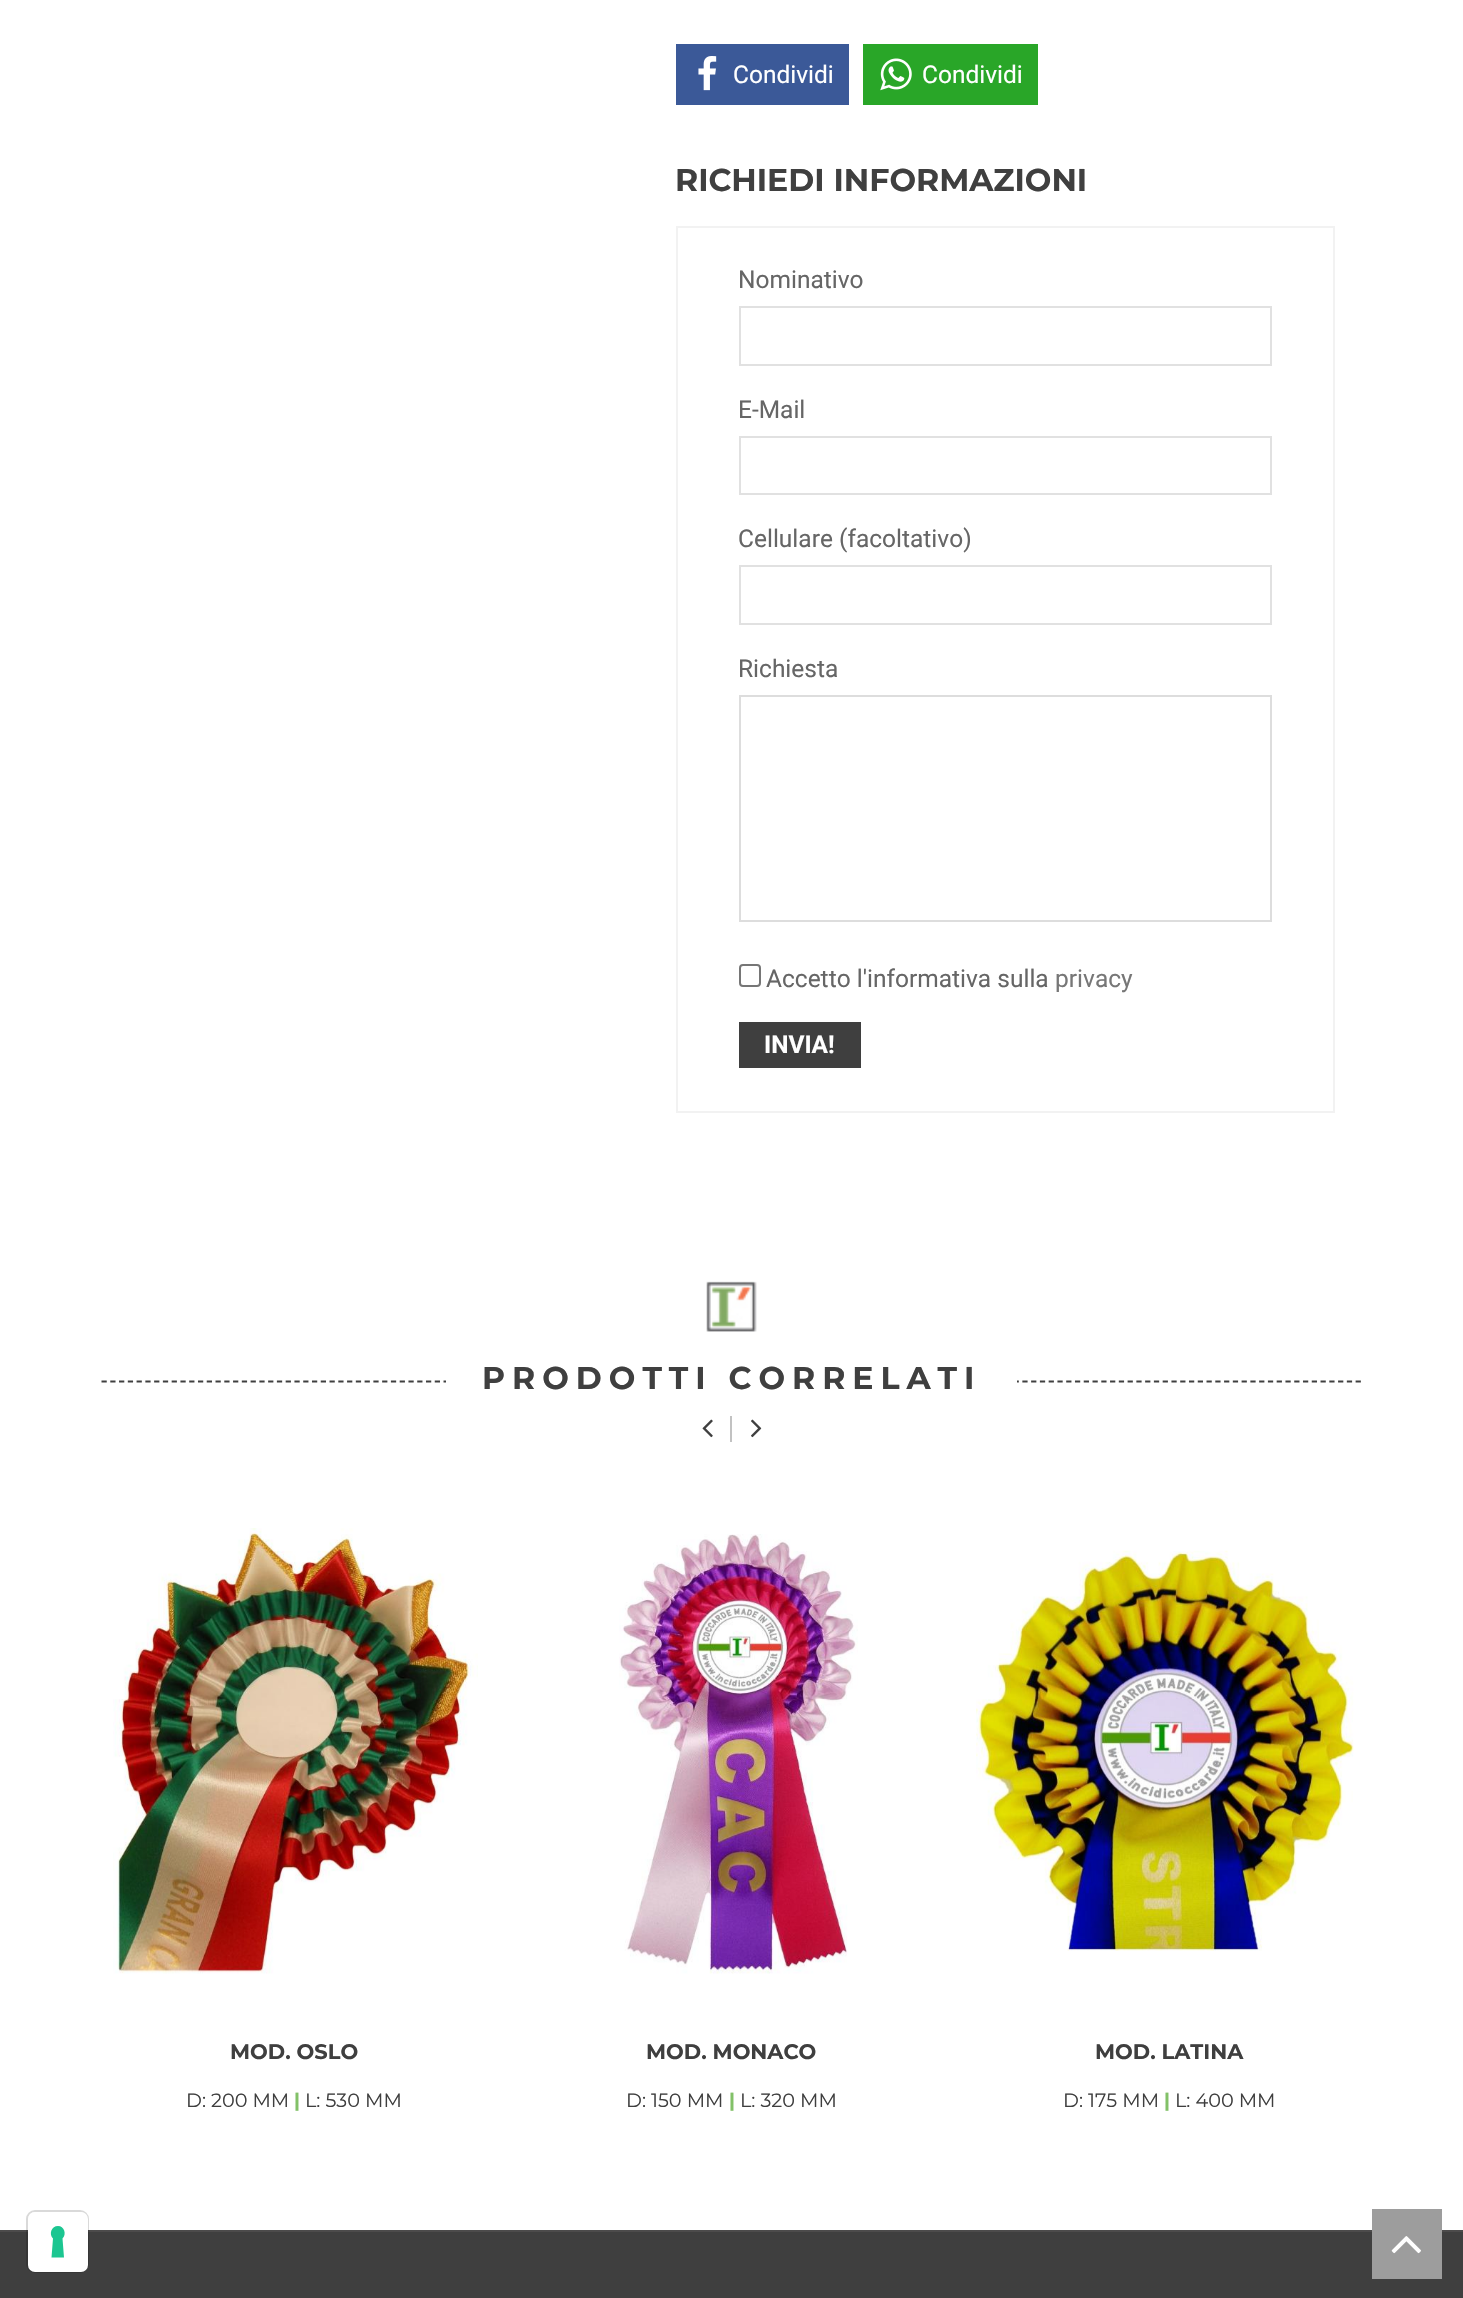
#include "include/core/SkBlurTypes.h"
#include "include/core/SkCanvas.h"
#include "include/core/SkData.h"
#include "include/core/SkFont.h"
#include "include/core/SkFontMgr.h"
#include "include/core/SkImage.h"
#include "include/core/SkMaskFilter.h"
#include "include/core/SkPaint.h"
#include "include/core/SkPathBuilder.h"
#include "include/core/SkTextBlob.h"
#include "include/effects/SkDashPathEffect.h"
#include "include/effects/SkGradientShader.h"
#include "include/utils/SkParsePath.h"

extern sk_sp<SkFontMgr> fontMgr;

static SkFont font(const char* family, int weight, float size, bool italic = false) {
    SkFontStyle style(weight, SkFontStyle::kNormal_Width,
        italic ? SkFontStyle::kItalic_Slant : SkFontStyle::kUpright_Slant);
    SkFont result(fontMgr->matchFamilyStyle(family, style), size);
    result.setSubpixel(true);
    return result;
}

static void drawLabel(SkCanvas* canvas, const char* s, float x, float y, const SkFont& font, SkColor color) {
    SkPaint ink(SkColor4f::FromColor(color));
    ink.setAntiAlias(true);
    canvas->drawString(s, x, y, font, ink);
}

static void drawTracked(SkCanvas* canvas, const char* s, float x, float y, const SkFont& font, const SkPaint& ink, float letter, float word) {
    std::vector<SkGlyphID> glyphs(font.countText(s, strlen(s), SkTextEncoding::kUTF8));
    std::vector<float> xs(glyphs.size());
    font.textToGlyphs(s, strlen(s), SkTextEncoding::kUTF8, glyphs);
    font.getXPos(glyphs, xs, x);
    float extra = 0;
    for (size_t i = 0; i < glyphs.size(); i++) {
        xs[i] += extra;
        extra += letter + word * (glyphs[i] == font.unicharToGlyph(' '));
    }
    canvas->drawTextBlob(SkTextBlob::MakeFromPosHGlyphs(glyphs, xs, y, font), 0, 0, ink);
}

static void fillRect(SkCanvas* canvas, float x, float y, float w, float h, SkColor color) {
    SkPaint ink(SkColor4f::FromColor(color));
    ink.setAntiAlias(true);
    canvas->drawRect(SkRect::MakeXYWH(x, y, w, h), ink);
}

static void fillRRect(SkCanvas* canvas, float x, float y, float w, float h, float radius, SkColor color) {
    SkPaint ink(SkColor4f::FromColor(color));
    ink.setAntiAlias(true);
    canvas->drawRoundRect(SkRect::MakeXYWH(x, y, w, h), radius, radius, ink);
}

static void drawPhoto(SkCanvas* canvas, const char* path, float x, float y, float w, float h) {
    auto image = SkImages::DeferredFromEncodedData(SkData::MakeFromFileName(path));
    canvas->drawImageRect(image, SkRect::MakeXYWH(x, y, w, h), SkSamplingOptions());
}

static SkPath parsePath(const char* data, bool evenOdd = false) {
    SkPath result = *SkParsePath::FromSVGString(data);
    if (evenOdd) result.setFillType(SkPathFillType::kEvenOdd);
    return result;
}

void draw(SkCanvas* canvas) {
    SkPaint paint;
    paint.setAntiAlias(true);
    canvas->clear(0xFFFFFFFF);
    fillRect(canvas, 676, 44, 173, 61, 0xFF3B5998);
    drawPhoto(canvas, "assets/img1.png", 698, 56, 19, 35);
    SkFont font1 = font("Roboto", 400, 24.5f);
    drawLabel(canvas, "Condividi", 733, 83, font1, 0xFFFFFFFF);
    fillRect(canvas, 863, 44, 175, 61, 0xFF29A628);
    drawPhoto(canvas, "assets/img2.png", 880, 58, 32, 33);
    drawLabel(canvas, "Condividi", 922, 83, font1, 0xFFFFFFFF);
    SkFont font2 = font("Montserrat", 700, 31.5f);
    drawLabel(canvas, "RICHIEDI INFORMAZIONI", 675, 191, font2, 0xFF3F3F3F);
    paint.setStroke(true);
    paint.setStrokeWidth(2);
    paint.setColor(0xFFF2F2F2);
    canvas->drawRect(SkRect::MakeXYWH(677, 227, 657, 885), paint);
    drawLabel(canvas, "Nominativo", 738, 288, font1, 0xFF666666);
    paint.setColor(0xFFE1E1E1);
    canvas->drawRect(SkRect::MakeXYWH(740, 307, 531, 58), paint);
    drawLabel(canvas, "E-Mail", 738, 418, font1, 0xFF666666);
    canvas->drawRect(SkRect::MakeXYWH(740, 437, 531, 57), paint);
    drawLabel(canvas, "Cellulare (facoltativo)", 738, 547, font1, 0xFF666666);
    canvas->drawRect(SkRect::MakeXYWH(740, 566, 531, 58), paint);
    drawLabel(canvas, "Richiesta", 738, 677, font1, 0xFF666666);
    paint.setColor(0xFFDDDDDD);
    canvas->drawRect(SkRect::MakeXYWH(740, 696, 531, 225), paint);
    paint.setColor(0xFF767676);
    canvas->drawRoundRect(SkRect::MakeXYWH(740, 965, 20, 21), 3, 3, paint);
    drawLabel(canvas, "Accetto l'informativa sulla", 766, 987, font1, 0xFF666666);
    drawLabel(canvas, "privacy", 1055, 987, font1, 0xFF777777);
    fillRect(canvas, 739, 1022, 122, 46, 0xFF3F3F3F);
    SkFont font3 = font("Roboto", 700, 24.5f);
    drawLabel(canvas, "INVIA!", 764, 1053, font3, 0xFFFFFFFF);
    drawPhoto(canvas, "assets/img3.png", 706, 1281, 51, 51);
    paint.setStrokeWidth(1.8f);
    paint.setColor(0xFF3F3F3F);
    paint.setPathEffect(SkDashPathEffect::Make({{5.25f, 3.52f}}, 0));
    canvas->drawPath(parsePath("M101.5 1381.5H1361.5"), paint);
    paint.setPathEffect(nullptr);
    fillRect(canvas, 446, 1380, 571, 3, 0xFFFFFFFF);
    paint.setStroke(false);
    drawTracked(canvas, "PRODOTTI CORRELATI", 482, 1389, font2, paint, 7, 0);
    drawPhoto(canvas, "assets/img4.png", 702, 1419, 11, 19);
    fillRect(canvas, 730, 1416, 2, 26, 0xFFC2C2C2);
    drawPhoto(canvas, "assets/img5.png", 751, 1419, 11, 19);
    drawPhoto(canvas, "assets/img6.png", 113, 1528, 365, 446);
    SkFont font4 = font("Montserrat", 700, 21);
    drawLabel(canvas, "MOD. OSLO", 230, 2059, font4, 0xFF3F3F3F);
    SkFont font5 = font("Montserrat", 400, 19.25f);
    drawLabel(canvas, "D: 200 MM", 186, 2107, font5, 0xFF3F3F3F);
    SkFont font6 = font("Montserrat", 700, 19.25f);
    drawLabel(canvas, "|", 294, 2107, font6, 0xFF82C168);
    drawLabel(canvas, "L: 530 MM", 305, 2107, font5, 0xFF3F3F3F);
    drawPhoto(canvas, "assets/img7.png", 619, 1534, 239, 440);
    drawLabel(canvas, "MOD. MONACO", 646, 2059, font4, 0xFF3F3F3F);
    drawLabel(canvas, "D: 150 MM", 626, 2107, font5, 0xFF3F3F3F);
    drawLabel(canvas, "|", 729, 2107, font6, 0xFF82C168);
    drawLabel(canvas, "L: 320 MM", 740, 2107, font5, 0xFF3F3F3F);
    drawPhoto(canvas, "assets/img8.png", 976, 1550, 378, 401);
    drawLabel(canvas, "MOD. LATINA", 1095, 2059, font4, 0xFF3F3F3F);
    drawLabel(canvas, "D: 175 MM", 1063, 2107, font5, 0xFF3F3F3F);
    drawLabel(canvas, "|", 1164, 2107, font6, 0xFF82C168);
    drawLabel(canvas, "L: 400 MM", 1175, 2107, font5, 0xFF3F3F3F);
    fillRect(canvas, 0, 2232, 1463, 66, 0xFF3F3F3F);
    fillRect(canvas, 0, 2230, 1463, 2, 0xFF4C4B4B);
    paint.setStroke(true);
    paint.setStrokeWidth(2);
    paint.setColor(0x26000000);
    canvas->drawRoundRect(SkRect::MakeXYWH(27, 2211, 61, 61), 8, 8, paint);
    fillRRect(canvas, 28, 2212, 60, 60, 7, 0xFFFFFFFF);
    paint.setStroke(false);
    paint.setColor(0xFF1CC691);
    canvas->drawPath(parsePath("M58 2226C64 2226 67 2234 62.5 2238.5L64 2257.5H51.5L53 2238.5C48.5 2234 51.5 2226 58 2226Z", true), paint);
    fillRect(canvas, 1372, 2209, 70, 70, 0xFF9D9D9D);
    drawPhoto(canvas, "assets/img9.png", 1391, 2236, 30, 18);
}
